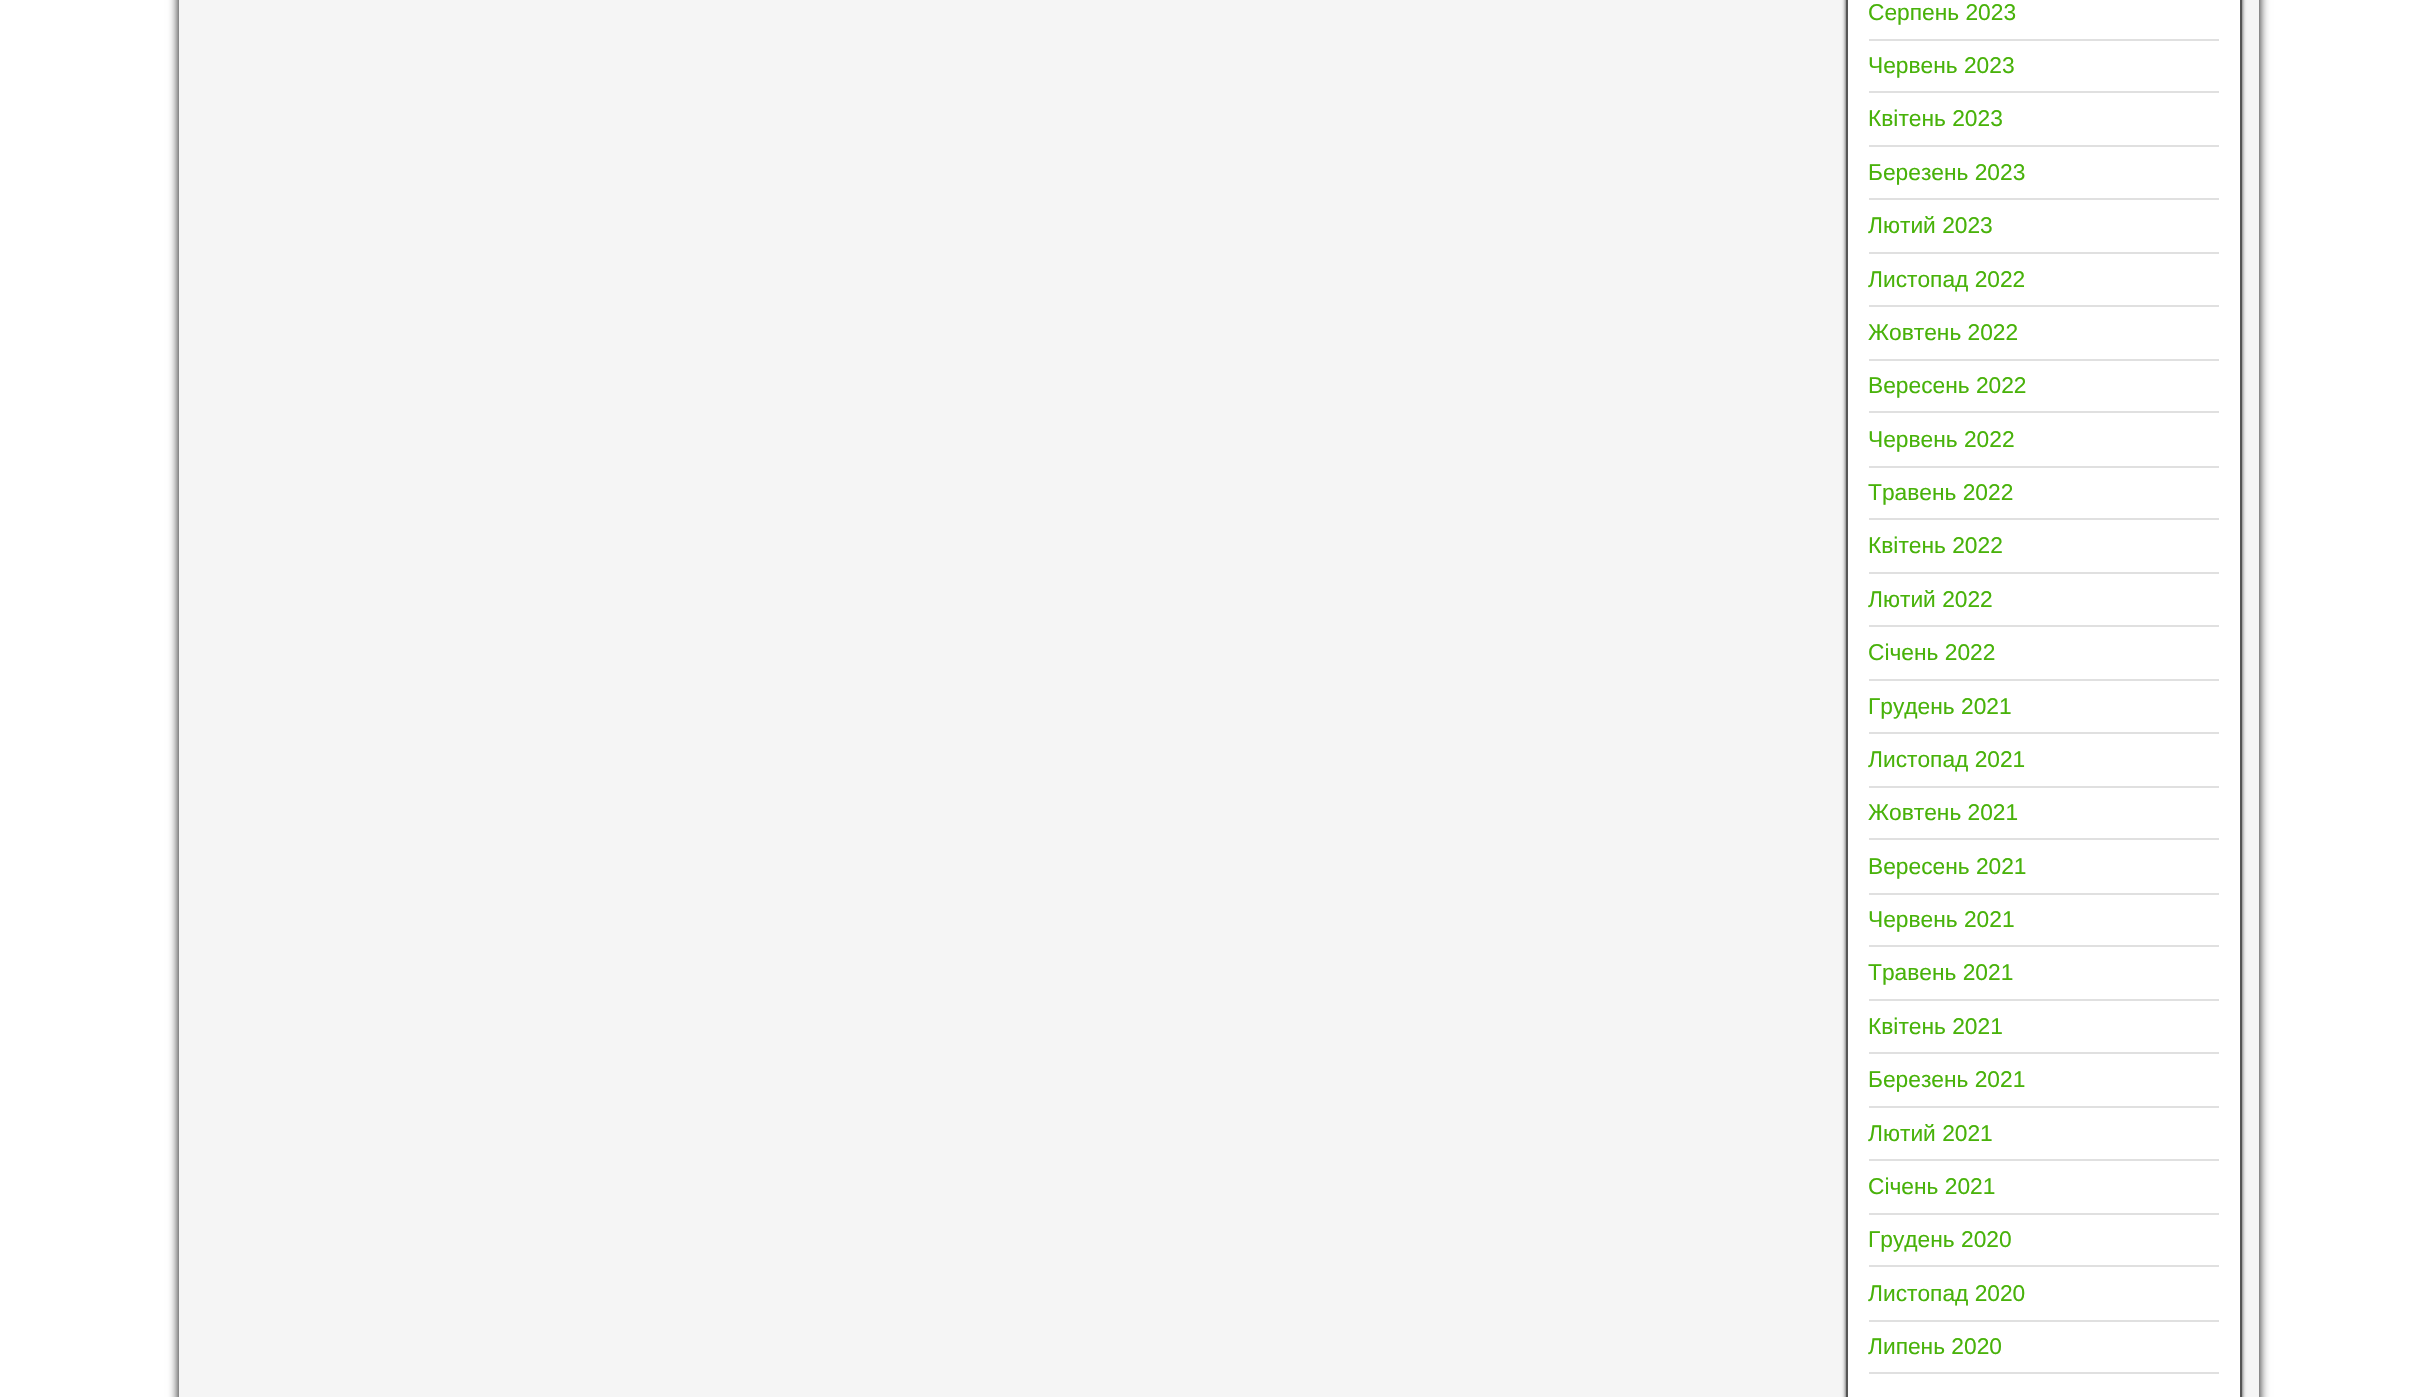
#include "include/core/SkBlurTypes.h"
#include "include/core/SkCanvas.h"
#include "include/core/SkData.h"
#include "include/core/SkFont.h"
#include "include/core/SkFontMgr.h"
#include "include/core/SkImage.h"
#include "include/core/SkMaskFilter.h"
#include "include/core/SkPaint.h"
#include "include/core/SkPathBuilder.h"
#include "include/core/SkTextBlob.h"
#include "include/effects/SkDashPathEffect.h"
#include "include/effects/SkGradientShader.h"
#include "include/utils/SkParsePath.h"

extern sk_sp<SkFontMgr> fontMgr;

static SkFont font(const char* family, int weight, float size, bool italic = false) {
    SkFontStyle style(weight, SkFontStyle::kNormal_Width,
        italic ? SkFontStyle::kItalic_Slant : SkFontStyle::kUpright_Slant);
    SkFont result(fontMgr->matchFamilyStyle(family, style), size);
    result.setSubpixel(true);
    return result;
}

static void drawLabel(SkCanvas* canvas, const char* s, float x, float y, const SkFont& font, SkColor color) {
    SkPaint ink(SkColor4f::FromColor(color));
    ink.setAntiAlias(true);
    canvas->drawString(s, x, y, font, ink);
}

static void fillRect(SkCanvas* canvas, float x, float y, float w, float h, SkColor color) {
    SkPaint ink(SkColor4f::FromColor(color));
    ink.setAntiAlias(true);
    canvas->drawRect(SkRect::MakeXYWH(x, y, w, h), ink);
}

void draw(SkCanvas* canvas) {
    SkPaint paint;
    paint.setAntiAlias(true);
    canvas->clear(0xFFFFFFFF);
    paint.setColor(0xFF000000);
    paint.setMaskFilter(SkMaskFilter::MakeBlur(kNormal_SkBlurStyle, 5));
    canvas->drawRect(SkRect::MakeXYWH(179, -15, 2080, 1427), paint);
    paint.setMaskFilter(nullptr);
    fillRect(canvas, 179, 0, 2080, 1397, 0xFFF5F5F5);
    paint.setColor(0xFF333333);
    paint.setMaskFilter(SkMaskFilter::MakeBlur(kNormal_SkBlurStyle, 2));
    canvas->drawRect(SkRect::MakeXYWH(1846, -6, 396, 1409), paint);
    paint.setMaskFilter(nullptr);
    paint.setColor(0xFFFFFFFF);
    canvas->drawRect(SkRect::MakeXYWH(1847, -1, 394, 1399), paint);
    paint.setStroke(true);
    paint.setStrokeWidth(2);
    paint.setColor(0xFF555555);
    canvas->drawRect(SkRect::MakeXYWH(1847, -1, 394, 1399), paint);
    fillRect(canvas, 1869, 39, 350, 2, 0xFFE0E0E0);
    SkFont font1 = font("Liberation Sans", 400, 22.75f);
    drawLabel(canvas, "Серпень 2023", 1868, 20, font1, 0xFF48B20A);
    fillRect(canvas, 1869, 91, 350, 2, 0xFFE0E0E0);
    drawLabel(canvas, "Червень 2023", 1868, 73, font1, 0xFF48B20A);
    fillRect(canvas, 1869, 145, 350, 2, 0xFFE0E0E0);
    drawLabel(canvas, "Квітень 2023", 1868, 126, font1, 0xFF48B20A);
    fillRect(canvas, 1869, 198, 350, 2, 0xFFE0E0E0);
    drawLabel(canvas, "Березень 2023", 1868, 180, font1, 0xFF48B20A);
    fillRect(canvas, 1869, 252, 350, 2, 0xFFE0E0E0);
    drawLabel(canvas, "Лютий 2023", 1868, 233, font1, 0xFF48B20A);
    fillRect(canvas, 1869, 305, 350, 2, 0xFFE0E0E0);
    drawLabel(canvas, "Листопад 2022", 1868, 287, font1, 0xFF48B20A);
    fillRect(canvas, 1869, 359, 350, 2, 0xFFE0E0E0);
    drawLabel(canvas, "Жовтень 2022", 1868, 340, font1, 0xFF48B20A);
    fillRect(canvas, 1869, 411, 350, 2, 0xFFE0E0E0);
    drawLabel(canvas, "Вересень 2022", 1868, 393, font1, 0xFF48B20A);
    fillRect(canvas, 1869, 466, 350, 2, 0xFFE0E0E0);
    drawLabel(canvas, "Червень 2022", 1868, 447, font1, 0xFF48B20A);
    fillRect(canvas, 1869, 518, 350, 2, 0xFFE0E0E0);
    drawLabel(canvas, "Травень 2022", 1868, 500, font1, 0xFF48B20A);
    fillRect(canvas, 1869, 572, 350, 2, 0xFFE0E0E0);
    drawLabel(canvas, "Квітень 2022", 1868, 553, font1, 0xFF48B20A);
    fillRect(canvas, 1869, 625, 350, 2, 0xFFE0E0E0);
    drawLabel(canvas, "Лютий 2022", 1868, 607, font1, 0xFF48B20A);
    fillRect(canvas, 1869, 679, 350, 2, 0xFFE0E0E0);
    drawLabel(canvas, "Січень 2022", 1868, 660, font1, 0xFF48B20A);
    fillRect(canvas, 1869, 732, 350, 2, 0xFFE0E0E0);
    drawLabel(canvas, "Грудень 2021", 1868, 714, font1, 0xFF48B20A);
    fillRect(canvas, 1869, 786, 350, 2, 0xFFE0E0E0);
    drawLabel(canvas, "Листопад 2021", 1868, 767, font1, 0xFF48B20A);
    fillRect(canvas, 1869, 838, 350, 2, 0xFFE0E0E0);
    drawLabel(canvas, "Жовтень 2021", 1868, 820, font1, 0xFF48B20A);
    fillRect(canvas, 1869, 893, 350, 2, 0xFFE0E0E0);
    drawLabel(canvas, "Вересень 2021", 1868, 874, font1, 0xFF48B20A);
    fillRect(canvas, 1869, 945, 350, 2, 0xFFE0E0E0);
    drawLabel(canvas, "Червень 2021", 1868, 927, font1, 0xFF48B20A);
    fillRect(canvas, 1869, 999, 350, 2, 0xFFE0E0E0);
    drawLabel(canvas, "Травень 2021", 1868, 980, font1, 0xFF48B20A);
    fillRect(canvas, 1869, 1052, 350, 2, 0xFFE0E0E0);
    drawLabel(canvas, "Квітень 2021", 1868, 1034, font1, 0xFF48B20A);
    fillRect(canvas, 1869, 1106, 350, 2, 0xFFE0E0E0);
    drawLabel(canvas, "Березень 2021", 1868, 1087, font1, 0xFF48B20A);
    fillRect(canvas, 1869, 1159, 350, 2, 0xFFE0E0E0);
    drawLabel(canvas, "Лютий 2021", 1868, 1141, font1, 0xFF48B20A);
    fillRect(canvas, 1869, 1213, 350, 2, 0xFFE0E0E0);
    drawLabel(canvas, "Січень 2021", 1868, 1194, font1, 0xFF48B20A);
    fillRect(canvas, 1869, 1265, 350, 2, 0xFFE0E0E0);
    drawLabel(canvas, "Грудень 2020", 1868, 1247, font1, 0xFF48B20A);
    fillRect(canvas, 1869, 1320, 350, 2, 0xFFE0E0E0);
    drawLabel(canvas, "Листопад 2020", 1868, 1301, font1, 0xFF48B20A);
    fillRect(canvas, 1869, 1372, 350, 2, 0xFFE0E0E0);
    drawLabel(canvas, "Липень 2020", 1868, 1354, font1, 0xFF48B20A);
}
